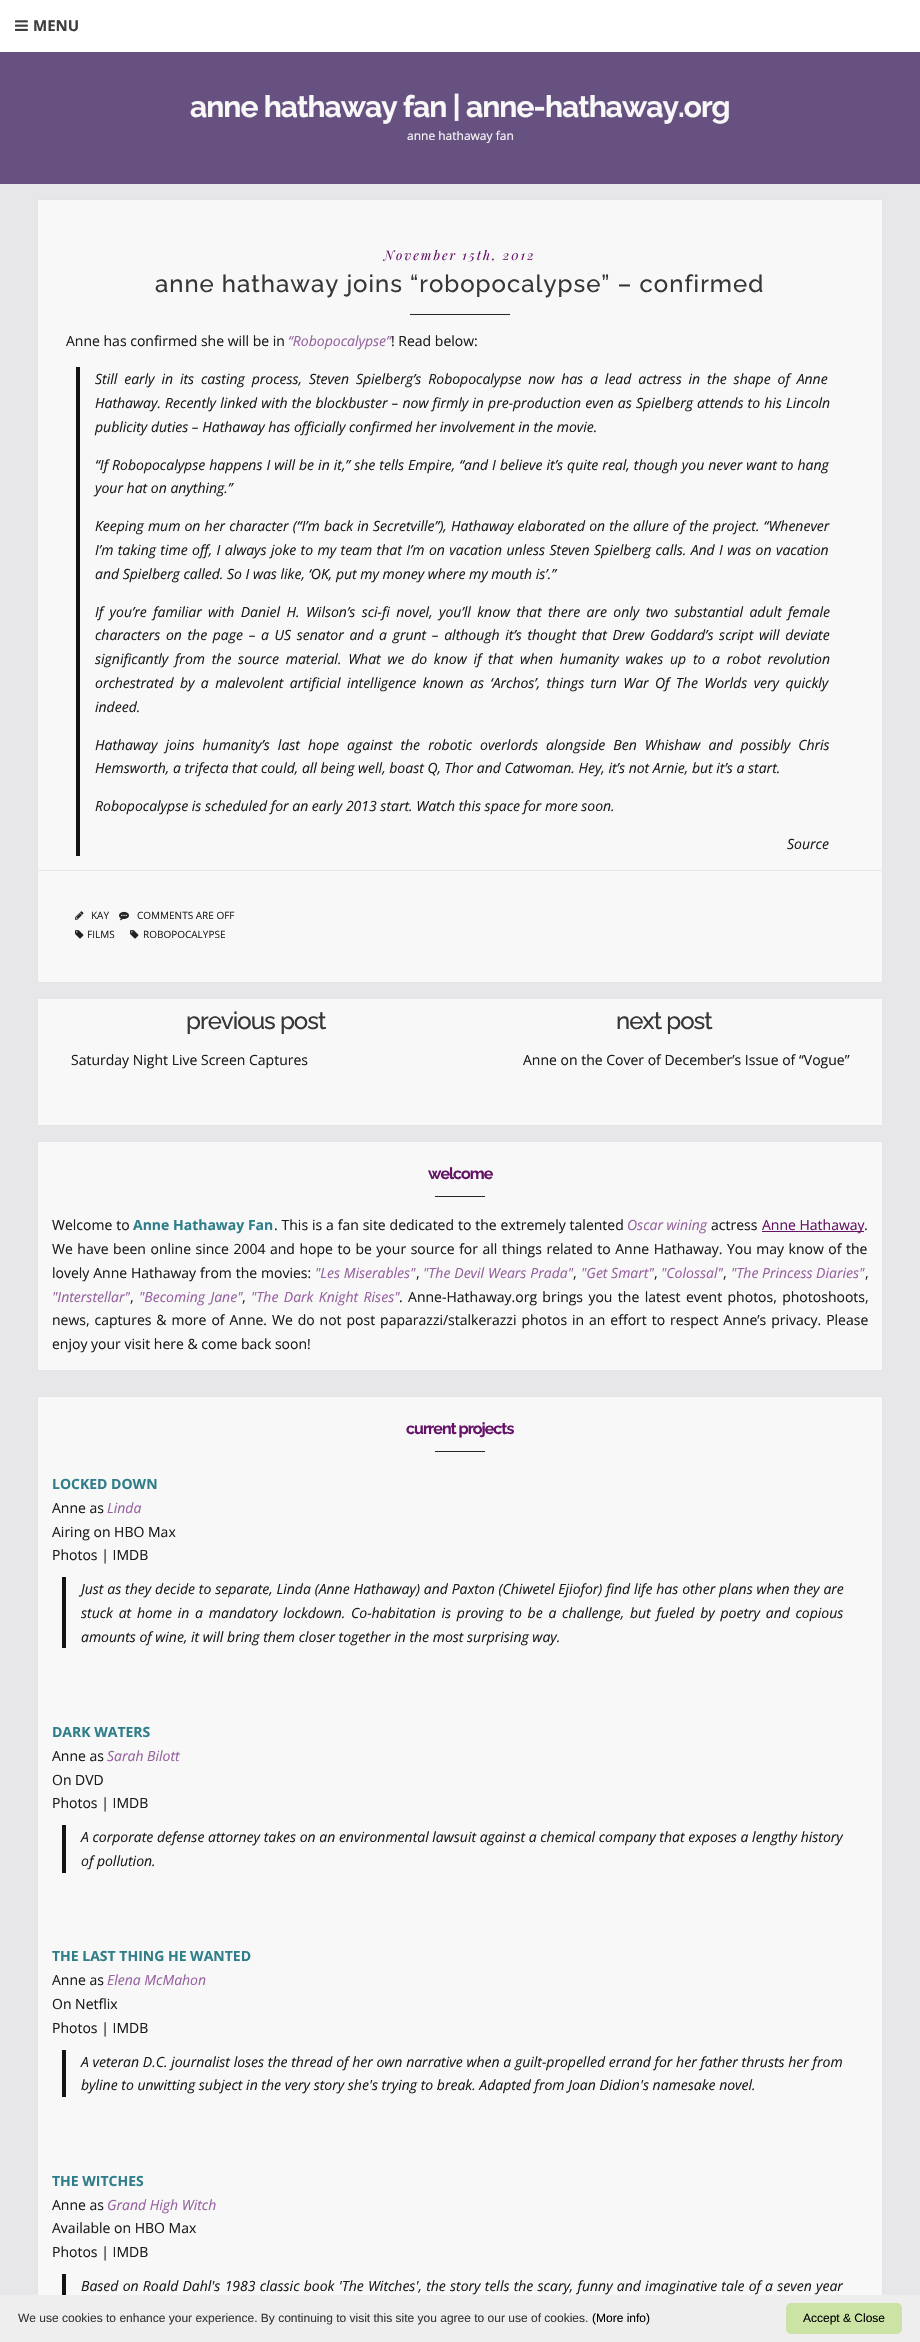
#include "include/core/SkBlurTypes.h"
#include "include/core/SkCanvas.h"
#include "include/core/SkData.h"
#include "include/core/SkFont.h"
#include "include/core/SkFontMgr.h"
#include "include/core/SkImage.h"
#include "include/core/SkMaskFilter.h"
#include "include/core/SkPaint.h"
#include "include/core/SkPathBuilder.h"
#include "include/core/SkTextBlob.h"
#include "include/effects/SkDashPathEffect.h"
#include "include/effects/SkGradientShader.h"
#include "include/utils/SkParsePath.h"

extern sk_sp<SkFontMgr> fontMgr;

static SkFont font(const char* family, int weight, float size, bool italic = false) {
    SkFontStyle style(weight, SkFontStyle::kNormal_Width,
        italic ? SkFontStyle::kItalic_Slant : SkFontStyle::kUpright_Slant);
    SkFont result(fontMgr->matchFamilyStyle(family, style), size);
    result.setSubpixel(true);
    return result;
}

static void drawLabel(SkCanvas* canvas, const char* s, float x, float y, const SkFont& font, SkColor color) {
    SkPaint ink(SkColor4f::FromColor(color));
    ink.setAntiAlias(true);
    canvas->drawString(s, x, y, font, ink);
}

static void drawTracked(SkCanvas* canvas, const char* s, float x, float y, const SkFont& font, const SkPaint& ink, float letter, float word) {
    std::vector<SkGlyphID> glyphs(font.countText(s, strlen(s), SkTextEncoding::kUTF8));
    std::vector<float> xs(glyphs.size());
    font.textToGlyphs(s, strlen(s), SkTextEncoding::kUTF8, glyphs);
    font.getXPos(glyphs, xs, x);
    float extra = 0;
    for (size_t i = 0; i < glyphs.size(); i++) {
        xs[i] += extra;
        extra += letter + word * (glyphs[i] == font.unicharToGlyph(' '));
    }
    canvas->drawTextBlob(SkTextBlob::MakeFromPosHGlyphs(glyphs, xs, y, font), 0, 0, ink);
}

static void fillRect(SkCanvas* canvas, float x, float y, float w, float h, SkColor color) {
    SkPaint ink(SkColor4f::FromColor(color));
    ink.setAntiAlias(true);
    canvas->drawRect(SkRect::MakeXYWH(x, y, w, h), ink);
}

static void fillRRect(SkCanvas* canvas, float x, float y, float w, float h, float radius, SkColor color) {
    SkPaint ink(SkColor4f::FromColor(color));
    ink.setAntiAlias(true);
    canvas->drawRoundRect(SkRect::MakeXYWH(x, y, w, h), radius, radius, ink);
}

static void drawPhoto(SkCanvas* canvas, const char* path, float x, float y, float w, float h) {
    auto image = SkImages::DeferredFromEncodedData(SkData::MakeFromFileName(path));
    canvas->drawImageRect(image, SkRect::MakeXYWH(x, y, w, h), SkSamplingOptions());
}

void draw(SkCanvas* canvas) {
    SkPaint paint;
    paint.setAntiAlias(true);
    canvas->clear(0xFFE7E7EA);
    fillRect(canvas, 0, 0, 920, 52, 0xFFFFFFFF);
    drawPhoto(canvas, "assets/img1.png", 15, 20, 13, 11);
    SkFont font1 = font("Open Sans", 700, 15);
    drawLabel(canvas, "MENU", 33, 31, font1, 0xFF3D3D3D);
    fillRect(canvas, 0, 52, 920, 132, 0xFF665181);
    SkFont font2 = font("Raleway", 700, 30);
    paint.setColor(0xFFF8F8F8);
    drawTracked(canvas, "anne hathaway fan | anne-hathaway.org", 190, 117, font2, paint, -1, 0);
    SkFont font3 = font("Open Sans", 400, 12);
    drawLabel(canvas, "anne hathaway fan", 407, 140, font3, 0xFFF8F8F8);
    canvas->drawRect(SkRect::MakeXYWH(37.5f, 199.5f, 845, 783), paint);
    paint.setStroke(true);
    paint.setStrokeWidth(1);
    paint.setColor(0xFFE4E4E4);
    canvas->drawRect(SkRect::MakeXYWH(37.5f, 199.5f, 845, 783), paint);
    SkFont font4 = font("Playfair Display", 400, 13, true);
    paint.setStroke(false);
    paint.setColor(0xFF641367);
    drawTracked(canvas, "November 15th, 2012", 384, 260, font4, paint, 2, 0);
    SkFont font5 = font("Raleway", 500, 24);
    paint.setColor(0xFF373737);
    drawTracked(canvas, "anne hathaway joins “robopocalypse” – confirmed", 155, 292, font5, paint, 1, 0);
    fillRect(canvas, 410, 314, 100, 1, 0xFF262626);
    SkFont font6 = font("Open Sans", 400, 14);
    drawLabel(canvas, "Anne has confirmed she will be in", 66, 346, font6, 0xFF1C1C1C);
    SkFont font7 = font("Open Sans", 400, 14, true);
    drawLabel(canvas, "“Robopocalypse”", 288, 346, font7, 0xFF9662A0);
    drawLabel(canvas, "! Read below:", 391, 346, font6, 0xFF1C1C1C);
    fillRect(canvas, 76, 367, 4, 489, 0xFF141414);
    paint.setColor(0xFF1C1C1C);
    drawTracked(canvas, "Still early in its casting process, Steven Spielberg’s Robopocalypse now has a lead actress in the shape of Anne", 95, 384, font7, paint, 0, 3.25f);
    drawTracked(canvas, "Hathaway. Recently linked with the blockbuster – now firmly in pre-production even as Spielberg attends to his Lincoln", 95, 408, font7, paint, 0, 0.5f);
    drawLabel(canvas, "publicity duties – Hathaway has officially confirmed her involvement in the movie.", 95, 432, font7, 0xFF1C1C1C);
    drawTracked(canvas, "“If Robopocalypse happens I will be in it,” she tells Empire, “and I believe it’s quite real, though you never want to hang", 95, 470, font7, paint, 0, 0.4f);
    drawLabel(canvas, "your hat on anything.”", 95, 493, font7, 0xFF1C1C1C);
    drawTracked(canvas, "Keeping mum on her character (“I’m back in Secretville”), Hathaway elaborated on the allure of the project. “Whenever", 95, 531, font7, paint, 0, 0.5f);
    drawTracked(canvas, "I’m taking time off, I always joke to my team that I’m on vacation unless Steven Spielberg calls. And I was on vacation", 95, 555, font7, paint, 0, 0.75f);
    drawLabel(canvas, "and Spielberg called. So I was like, ‘OK, put my money where my mouth is’.”", 95, 579, font7, 0xFF1C1C1C);
    drawTracked(canvas, "If you’re familiar with Daniel H. Wilson’s sci-fi novel, you’ll know that there are only two substantial adult female", 95, 617, font7, paint, 0, 2.75f);
    drawTracked(canvas, "characters on the page – a US senator and a grunt – although it’s thought that Drew Goddard’s script will deviate", 95, 640, font7, paint, 0, 2);
    drawTracked(canvas, "significantly from the source material. What we do know if that when humanity wakes up to a robot revolution", 95, 664, font7, paint, 0, 3.1f);
    drawTracked(canvas, "orchestrated by a malevolent artificial intelligence known as ‘Archos’, things turn War Of The Worlds very quickly", 95, 688, font7, paint, 0, 2.75f);
    drawLabel(canvas, "indeed.", 95, 712, font7, 0xFF1C1C1C);
    drawTracked(canvas, "Hathaway joins humanity’s last hope against the robotic overlords alongside Ben Whishaw and possibly Chris", 95, 750, font7, paint, 0, 4.4f);
    drawLabel(canvas, "Hemsworth, a trifecta that could, all being well, boast Q, Thor and Catwoman. Hey, it’s not Arnie, but it’s a start.", 95, 773, font7, 0xFF1C1C1C);
    drawLabel(canvas, "Robopocalypse is scheduled for an early 2013 start. Watch this space for more soon.", 95, 811, font7, 0xFF1C1C1C);
    drawLabel(canvas, "Source", 787, 849, font7, 0xFF1C1C1C);
    fillRect(canvas, 38, 870, 844, 1, 0xFFE7E7EA);
    drawPhoto(canvas, "assets/img2.png", 75, 911, 9, 9);
    SkFont font8 = font("Open Sans", 400, 10);
    drawLabel(canvas, "KAY", 91, 919, font8, 0xFF222222);
    drawPhoto(canvas, "assets/img3.png", 119, 911, 10, 10);
    drawLabel(canvas, "COMMENTS ARE OFF", 137, 919, font8, 0xFF222222);
    drawPhoto(canvas, "assets/img4.png", 75, 930, 9, 9);
    drawLabel(canvas, "FILMS", 87, 938, font8, 0xFF222222);
    drawPhoto(canvas, "assets/img4.png", 130, 930, 9, 9);
    drawLabel(canvas, "ROBOPOCALYPSE", 143, 938, font8, 0xFF222222);
    paint.setColor(0xFFF8F8F8);
    canvas->drawRect(SkRect::MakeXYWH(37.5f, 998.5f, 845, 127), paint);
    paint.setStroke(true);
    paint.setColor(0xFFE4E4E4);
    canvas->drawRect(SkRect::MakeXYWH(37.5f, 998.5f, 845, 127), paint);
    paint.setStroke(false);
    paint.setColor(0xFF373737);
    drawTracked(canvas, "previous post", 186, 1029, font5, paint, -1, 0);
    drawLabel(canvas, "Saturday Night Live Screen Captures", 71, 1065, font6, 0xFF1C1C1C);
    drawTracked(canvas, "next post", 616, 1029, font5, paint, -1, 0);
    drawLabel(canvas, "Anne on the Cover of December’s Issue of “Vogue”", 523, 1065, font6, 0xFF1C1C1C);
    paint.setColor(0xFFF8F8F8);
    canvas->drawRect(SkRect::MakeXYWH(37.5f, 1141.5f, 845, 229), paint);
    paint.setStroke(true);
    paint.setColor(0xFFE4E4E4);
    canvas->drawRect(SkRect::MakeXYWH(37.5f, 1141.5f, 845, 229), paint);
    SkFont font9 = font("Raleway", 700, 16);
    paint.setStroke(false);
    paint.setColor(0xFF641367);
    drawTracked(canvas, "welcome", 428, 1179, font9, paint, -1, 0);
    fillRect(canvas, 435, 1196, 50, 1, 0xFF262626);
    paint.setColor(0xFF1C1C1C);
    drawTracked(canvas, "Welcome to", 52, 1230, font6, paint, 0, 0.25f);
    SkFont font10 = font("Open Sans", 700, 14);
    drawLabel(canvas, "Anne Hathaway Fan", 133, 1230, font10, 0xFF2F7E89);
    drawTracked(canvas, ". This is a fan site dedicated to the extremely talented", 274, 1230, font6, paint, 0, 0.25f);
    drawLabel(canvas, "Oscar wining", 627, 1230, font7, 0xFF9662A0);
    drawLabel(canvas, "actress", 711, 1230, font6, 0xFF1C1C1C);
    fillRect(canvas, 762, 1231, 102, 1, 0xFF641367);
    drawLabel(canvas, "Anne Hathaway", 762, 1230, font6, 0xFF641367);
    drawLabel(canvas, ".", 864, 1230, font6, 0xFF1C1C1C);
    drawTracked(canvas, "We have been online since 2004 and hope to be your source for all things related to Anne Hathaway. You may know of the", 52, 1254, font6, paint, 0, 0.9f);
    drawTracked(canvas, "lovely Anne Hathaway from the movies:", 52, 1278, font6, paint, 0, 0.25f);
    drawLabel(canvas, "\"Les Miserables\"", 315, 1278, font7, 0xFF9662A0);
    drawLabel(canvas, ",", 416, 1278, font6, 0xFF1C1C1C);
    paint.setColor(0xFF9662A0);
    drawTracked(canvas, "\"The Devil Wears Prada\"", 423, 1278, font7, paint, 0, 0.25f);
    drawLabel(canvas, ",", 573, 1278, font6, 0xFF1C1C1C);
    drawLabel(canvas, "\"Get Smart\"", 581, 1278, font7, 0xFF9662A0);
    drawLabel(canvas, ",", 654, 1278, font6, 0xFF1C1C1C);
    drawLabel(canvas, "\"Colossal\"", 661, 1278, font7, 0xFF9662A0);
    drawLabel(canvas, ",", 723, 1278, font6, 0xFF1C1C1C);
    drawLabel(canvas, "\"The Princess Diaries\"", 731, 1278, font7, 0xFF9662A0);
    drawLabel(canvas, ",", 865, 1278, font6, 0xFF1C1C1C);
    drawLabel(canvas, "\"Interstellar\"", 52, 1302, font7, 0xFF9662A0);
    drawLabel(canvas, ",", 130, 1302, font6, 0xFF1C1C1C);
    drawTracked(canvas, "\"Becoming Jane\"", 139, 1302, font7, paint, 0, 1.75f);
    drawLabel(canvas, ",", 242, 1302, font6, 0xFF1C1C1C);
    drawTracked(canvas, "\"The Dark Knight Rises\"", 251, 1302, font7, paint, 0, 1.75f);
    paint.setColor(0xFF1C1C1C);
    drawTracked(canvas, ". Anne-Hathaway.org brings you the latest event photos, photoshoots,", 399, 1302, font6, paint, 0, 1.75f);
    drawTracked(canvas, "news, captures & more of Anne. We do not post paparazzi/stalkerazzi photos in an effort to respect Anne’s privacy. Please", 52, 1325, font6, paint, 0, 1.3f);
    drawLabel(canvas, "enjoy your visit here & come back soon!", 52, 1349, font6, 0xFF1C1C1C);
    fillRect(canvas, 38, 1397, 844, 898, 0xFFF8F8F8);
    paint.setStroke(true);
    paint.setColor(0xFFE4E4E4);
    canvas->drawRect(SkRect::MakeXYWH(37.5f, 1396.5f, 845, 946), paint);
    paint.setStroke(false);
    paint.setColor(0xFF641367);
    drawTracked(canvas, "current projects", 406, 1434, font9, paint, -1, 0);
    fillRect(canvas, 435, 1451, 50, 1, 0xFF262626);
    drawLabel(canvas, "LOCKED DOWN", 52, 1489, font10, 0xFF2F7E89);
    drawLabel(canvas, "Anne as", 52, 1513, font6, 0xFF1C1C1C);
    drawLabel(canvas, "Linda", 107, 1513, font7, 0xFF9662A0);
    drawLabel(canvas, "Airing on HBO Max", 52, 1537, font6, 0xFF1C1C1C);
    drawLabel(canvas, "Photos | IMDB", 52, 1560, font6, 0xFF1C1C1C);
    fillRect(canvas, 62, 1577, 4, 71, 0xFF141414);
    paint.setColor(0xFF1C1C1C);
    drawTracked(canvas, "Just as they decide to separate, Linda (Anne Hathaway) and Paxton (Chiwetel Ejiofor) find life has other plans when they are", 81, 1594, font7, paint, 0, 0.2f);
    drawTracked(canvas, "stuck at home in a mandatory lockdown. Co-habitation is proving to be a challenge, but fueled by poetry and copious", 81, 1618, font7, paint, 0, 2.1f);
    drawLabel(canvas, "amounts of wine, it will bring them closer together in the most surprising way.", 81, 1642, font7, 0xFF1C1C1C);
    drawLabel(canvas, "DARK WATERS", 52, 1737, font10, 0xFF2F7E89);
    drawLabel(canvas, "Anne as", 52, 1761, font6, 0xFF1C1C1C);
    drawLabel(canvas, "Sarah Bilott", 107, 1761, font7, 0xFF9662A0);
    drawLabel(canvas, "On DVD", 52, 1785, font6, 0xFF1C1C1C);
    drawLabel(canvas, "Photos | IMDB", 52, 1808, font6, 0xFF1C1C1C);
    fillRect(canvas, 62, 1825, 4, 48, 0xFF141414);
    drawLabel(canvas, "A corporate defense attorney takes on an environmental lawsuit against a chemical company that exposes a lengthy history", 81, 1842, font7, 0xFF1C1C1C);
    drawLabel(canvas, "of pollution.", 81, 1866, font7, 0xFF1C1C1C);
    drawLabel(canvas, "THE LAST THING HE WANTED", 52, 1961, font10, 0xFF2F7E89);
    drawLabel(canvas, "Anne as", 52, 1985, font6, 0xFF1C1C1C);
    drawLabel(canvas, "Elena McMahon", 107, 1985, font7, 0xFF9662A0);
    drawLabel(canvas, "On Netflix", 52, 2009, font6, 0xFF1C1C1C);
    drawLabel(canvas, "Photos | IMDB", 52, 2033, font6, 0xFF1C1C1C);
    fillRect(canvas, 62, 2050, 4, 47, 0xFF141414);
    drawTracked(canvas, "A veteran D.C. journalist loses the thread of her own narrative when a guilt-propelled errand for her father thrusts her from", 81, 2067, font7, paint, 0, 0.1f);
    drawLabel(canvas, "byline to unwitting subject in the very story she's trying to break. Adapted from Joan Didion's namesake novel.", 81, 2090, font7, 0xFF1C1C1C);
    drawLabel(canvas, "THE WITCHES", 52, 2186, font10, 0xFF2F7E89);
    drawLabel(canvas, "Anne as", 52, 2210, font6, 0xFF1C1C1C);
    drawLabel(canvas, "Grand High Witch", 107, 2210, font7, 0xFF9662A0);
    drawLabel(canvas, "Available on HBO Max", 52, 2233, font6, 0xFF1C1C1C);
    drawLabel(canvas, "Photos | IMDB", 52, 2257, font6, 0xFF1C1C1C);
    fillRect(canvas, 62, 2274, 4, 21, 0xFF141414);
    drawTracked(canvas, "Based on Roald Dahl's 1983 classic book 'The Witches', the story tells the scary, funny and imaginative tale of a seven year", 81, 2291, font7, paint, 0, 0.6f);
    fillRect(canvas, 0, 2295, 920, 47, 0xFFEEEEEE);
    SkFont font11 = font("Liberation Sans", 400, 12);
    drawLabel(canvas, "We use cookies to enhance your experience. By continuing to visit this site you agree to our use of cookies.", 18, 2322, font11, 0xFF373737);
    drawLabel(canvas, "(More info)", 592, 2322, font11, 0xFF000000);
    fillRRect(canvas, 786, 2303, 116, 31, 5, 0xFFCBE3A5);
    drawLabel(canvas, "Accept & Close", 803, 2322, font11, 0xFF000000);
}
